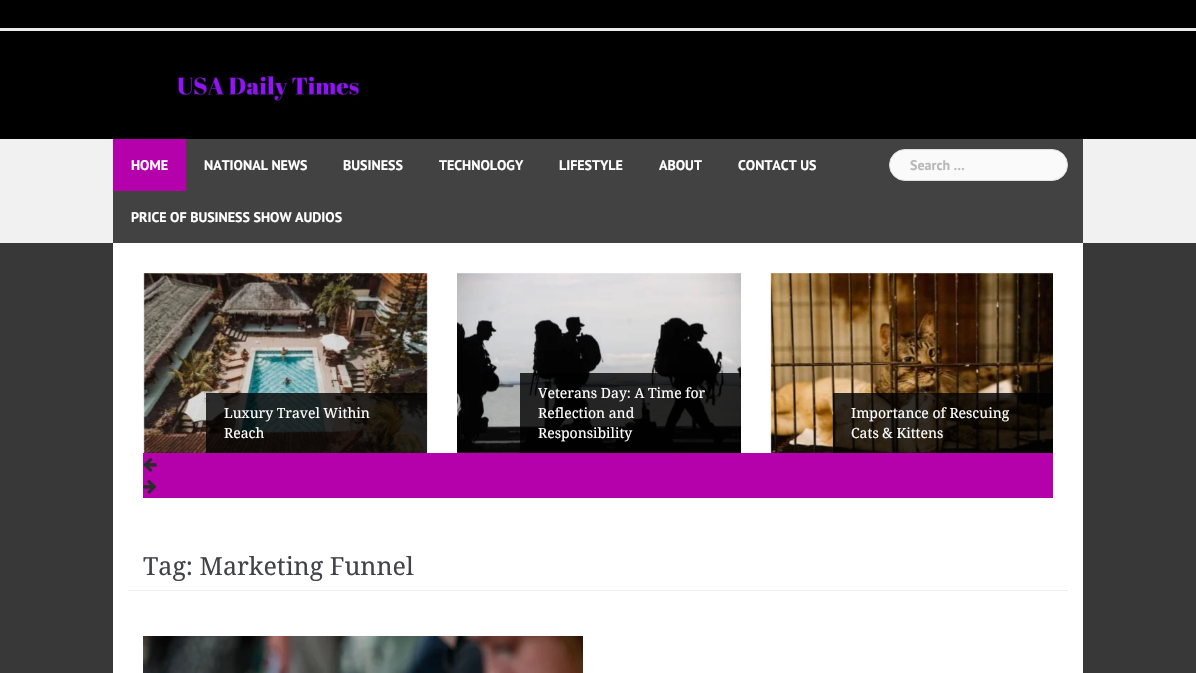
#include "include/core/SkBlurTypes.h"
#include "include/core/SkCanvas.h"
#include "include/core/SkData.h"
#include "include/core/SkFont.h"
#include "include/core/SkFontMgr.h"
#include "include/core/SkImage.h"
#include "include/core/SkMaskFilter.h"
#include "include/core/SkPaint.h"
#include "include/core/SkPathBuilder.h"
#include "include/core/SkTextBlob.h"
#include "include/effects/SkDashPathEffect.h"
#include "include/effects/SkGradientShader.h"
#include "include/utils/SkParsePath.h"

extern sk_sp<SkFontMgr> fontMgr;

static SkFont font(const char* family, int weight, float size, bool italic = false) {
    SkFontStyle style(weight, SkFontStyle::kNormal_Width,
        italic ? SkFontStyle::kItalic_Slant : SkFontStyle::kUpright_Slant);
    SkFont result(fontMgr->matchFamilyStyle(family, style), size);
    result.setSubpixel(true);
    return result;
}

static void drawLabel(SkCanvas* canvas, const char* s, float x, float y, const SkFont& font, SkColor color) {
    SkPaint ink(SkColor4f::FromColor(color));
    ink.setAntiAlias(true);
    canvas->drawString(s, x, y, font, ink);
}

static void fillRect(SkCanvas* canvas, float x, float y, float w, float h, SkColor color) {
    SkPaint ink(SkColor4f::FromColor(color));
    ink.setAntiAlias(true);
    canvas->drawRect(SkRect::MakeXYWH(x, y, w, h), ink);
}

static void drawPhoto(SkCanvas* canvas, const char* path, float x, float y, float w, float h) {
    auto image = SkImages::DeferredFromEncodedData(SkData::MakeFromFileName(path));
    canvas->drawImageRect(image, SkRect::MakeXYWH(x, y, w, h), SkSamplingOptions());
}

void draw(SkCanvas* canvas) {
    SkPaint paint;
    paint.setAntiAlias(true);
    canvas->clear(0xFF383838);
    fillRect(canvas, 0, 0, 1196, 28, 0xFF000000);
    fillRect(canvas, 0, 28, 1196, 3, 0xFFEBEBEB);
    fillRect(canvas, 0, 31, 1196, 108, 0xFF000000);
    drawPhoto(canvas, "assets/img1.png", 177, 75, 183, 27);
    fillRect(canvas, 0, 139, 1196, 104, 0xFFF1F1F1);
    fillRect(canvas, 113, 139, 970, 104, 0xFF424242);
    fillRect(canvas, 113, 139, 73, 52, 0xFFB501AC);
    SkFont font1 = font("PT Sans", 700, 14);
    drawLabel(canvas, "HOME", 131, 170, font1, 0xFFFFFFFF);
    drawLabel(canvas, "NATIONAL NEWS", 204, 170, font1, 0xFFFFFFFF);
    drawLabel(canvas, "BUSINESS", 343, 170, font1, 0xFFFFFFFF);
    drawLabel(canvas, "TECHNOLOGY", 439, 170, font1, 0xFFFFFFFF);
    drawLabel(canvas, "LIFESTYLE", 559, 170, font1, 0xFFFFFFFF);
    drawLabel(canvas, "ABOUT", 659, 170, font1, 0xFFFFFFFF);
    drawLabel(canvas, "CONTACT US", 738, 170, font1, 0xFFFFFFFF);
    drawLabel(canvas, "PRICE OF BUSINESS SHOW AUDIOS", 131, 222, font1, 0xFFFFFFFF);
    paint.setColor(0xFFFAFAFA);
    canvas->drawRoundRect(SkRect::MakeXYWH(889.5f, 149.5f, 178, 31), 15.5f, 15.5f, paint);
    paint.setStroke(true);
    paint.setStrokeWidth(1);
    paint.setColor(0xFFDFDFDF);
    canvas->drawRoundRect(SkRect::MakeXYWH(889.5f, 149.5f, 178, 31), 15.5f, 15.5f, paint);
    drawLabel(canvas, "Search …", 910, 170, font1, 0xFFB9B9B9);
    fillRect(canvas, 113, 243, 970, 430, 0xFFFFFFFF);
    drawPhoto(canvas, "assets/img2.png", 143, 273, 285, 180);
    fillRect(canvas, 206, 393, 221, 60, 0xCC000000);
    SkFont font2 = font("Droid Serif", 400, 14);
    drawLabel(canvas, "Luxury Travel Within", 224, 418, font2, 0xFFFFFFFF);
    drawLabel(canvas, "Reach", 224, 438, font2, 0xFFFFFFFF);
    drawPhoto(canvas, "assets/img3.png", 457, 273, 284, 180);
    fillRect(canvas, 520, 373, 221, 80, 0xCC000000);
    drawLabel(canvas, "Veterans Day: A Time for", 538, 398, font2, 0xFFFFFFFF);
    drawLabel(canvas, "Reflection and", 538, 418, font2, 0xFFFFFFFF);
    drawLabel(canvas, "Responsibility", 538, 438, font2, 0xFFFFFFFF);
    drawPhoto(canvas, "assets/img4.png", 770, 273, 283, 180);
    fillRect(canvas, 833, 393, 220, 60, 0xCC000000);
    drawLabel(canvas, "Importance of Rescuing", 851, 418, font2, 0xFFFFFFFF);
    drawLabel(canvas, "Cats & Kittens", 851, 438, font2, 0xFFFFFFFF);
    fillRect(canvas, 143, 453, 910, 45, 0xFFB501AC);
    drawPhoto(canvas, "assets/img5.png", 143, 457, 14, 15);
    drawPhoto(canvas, "assets/img6.png", 143, 479, 14, 15);
    fillRect(canvas, 128, 590, 940, 1, 0xFFEEEEEE);
    SkFont font3 = font("Droid Serif", 400, 25);
    drawLabel(canvas, "Tag: Marketing Funnel", 143, 575, font3, 0xFF424347);
    drawPhoto(canvas, "assets/img7.png", 143, 636, 440, 37);
}
